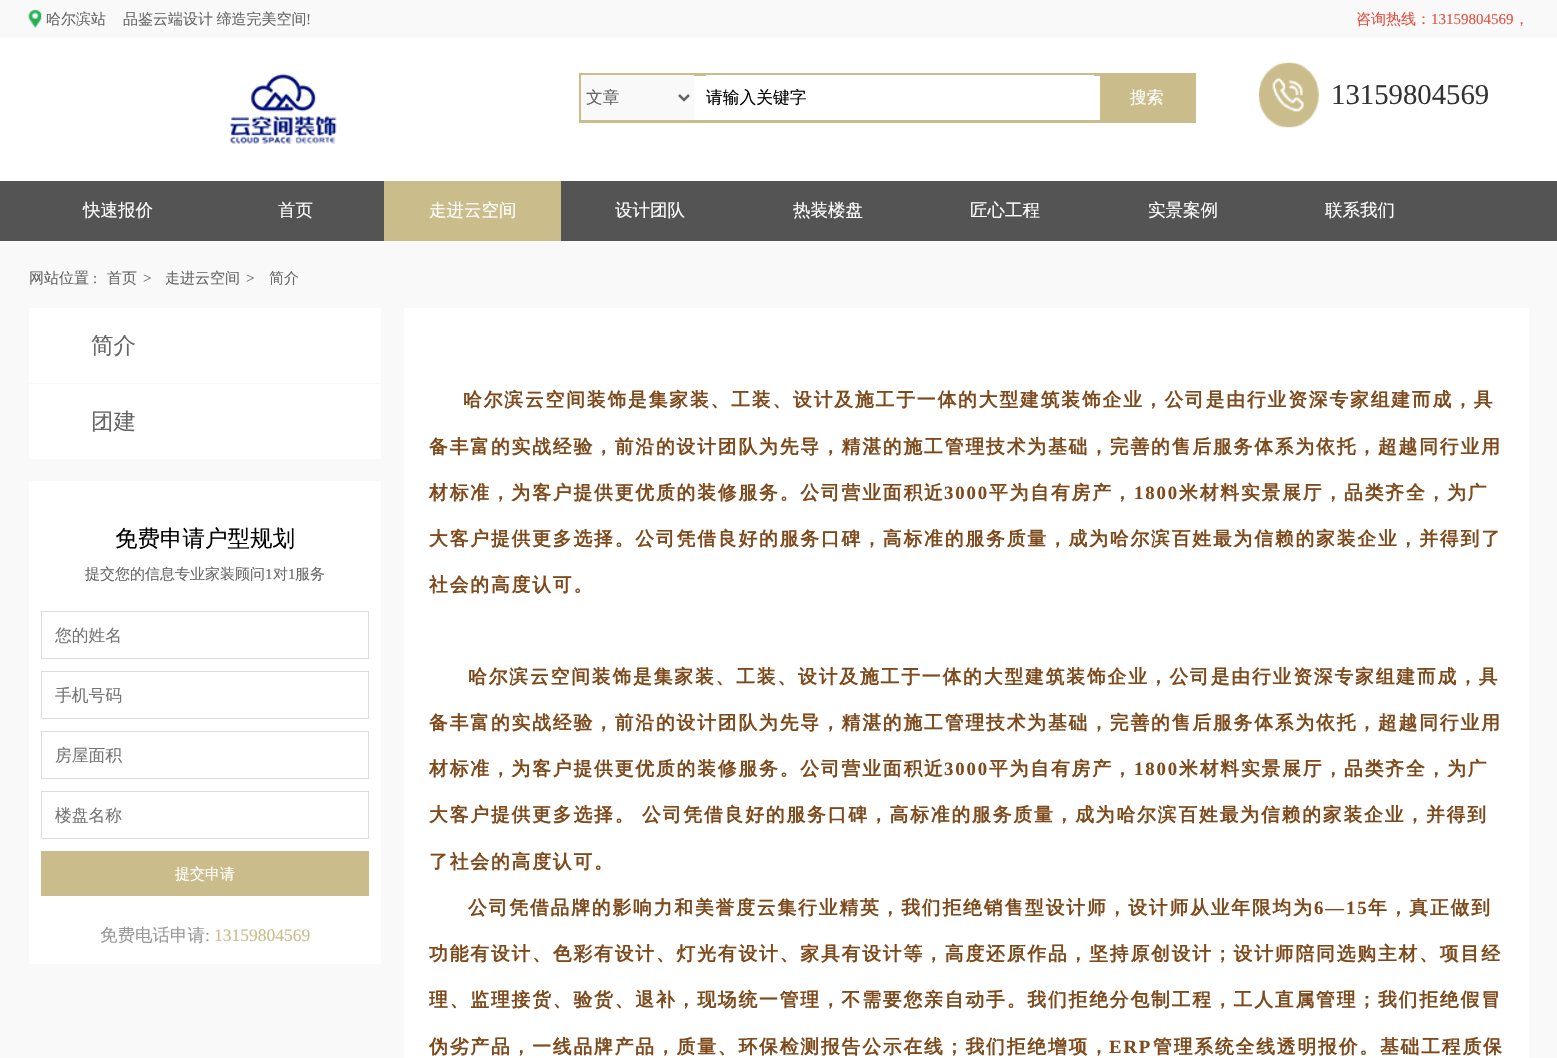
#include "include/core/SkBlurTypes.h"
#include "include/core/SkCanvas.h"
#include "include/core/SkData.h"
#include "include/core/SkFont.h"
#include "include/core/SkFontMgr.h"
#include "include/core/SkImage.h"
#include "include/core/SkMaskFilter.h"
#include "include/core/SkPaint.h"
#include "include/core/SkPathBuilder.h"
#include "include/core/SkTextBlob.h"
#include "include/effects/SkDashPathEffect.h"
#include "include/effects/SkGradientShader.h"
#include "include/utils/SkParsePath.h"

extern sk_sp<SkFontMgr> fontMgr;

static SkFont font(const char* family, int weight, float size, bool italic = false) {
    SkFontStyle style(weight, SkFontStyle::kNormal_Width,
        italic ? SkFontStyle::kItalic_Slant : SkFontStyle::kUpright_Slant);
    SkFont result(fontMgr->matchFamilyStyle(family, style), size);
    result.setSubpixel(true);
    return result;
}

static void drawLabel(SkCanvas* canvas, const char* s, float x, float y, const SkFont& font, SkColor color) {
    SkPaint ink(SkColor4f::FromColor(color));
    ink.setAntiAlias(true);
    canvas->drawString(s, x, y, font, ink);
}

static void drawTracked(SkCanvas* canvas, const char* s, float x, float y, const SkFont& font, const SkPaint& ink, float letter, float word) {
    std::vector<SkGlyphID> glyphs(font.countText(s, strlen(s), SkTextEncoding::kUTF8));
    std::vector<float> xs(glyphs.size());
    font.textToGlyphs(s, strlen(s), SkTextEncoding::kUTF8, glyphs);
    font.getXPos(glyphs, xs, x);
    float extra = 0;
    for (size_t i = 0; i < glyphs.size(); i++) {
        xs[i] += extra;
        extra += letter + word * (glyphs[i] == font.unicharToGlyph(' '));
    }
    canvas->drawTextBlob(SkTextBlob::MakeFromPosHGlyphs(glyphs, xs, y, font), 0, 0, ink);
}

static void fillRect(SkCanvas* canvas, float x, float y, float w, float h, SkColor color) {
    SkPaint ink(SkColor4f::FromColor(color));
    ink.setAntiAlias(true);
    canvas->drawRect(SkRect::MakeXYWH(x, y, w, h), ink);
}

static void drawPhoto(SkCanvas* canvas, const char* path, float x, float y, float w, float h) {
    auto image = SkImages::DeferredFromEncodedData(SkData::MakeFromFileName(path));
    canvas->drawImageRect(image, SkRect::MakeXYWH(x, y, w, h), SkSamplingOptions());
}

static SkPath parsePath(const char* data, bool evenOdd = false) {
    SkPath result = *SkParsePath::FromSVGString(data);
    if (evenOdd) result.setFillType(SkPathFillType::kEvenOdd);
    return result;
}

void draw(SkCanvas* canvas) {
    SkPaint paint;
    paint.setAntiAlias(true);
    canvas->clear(0xFFFFFFFF);
    fillRect(canvas, 0, 0, 1557, 38, 0xFFF9F9F9);
    drawPhoto(canvas, "assets/img1.png", 28, 10, 14, 18);
    SkFont font1 = font("WenQuanYi Zen Hei", 500, 15);
    drawLabel(canvas, "哈尔滨站", 46, 24, font1, 0xFF666666);
    paint.setColor(0xFF666666);
    drawTracked(canvas, "品鉴云端设计 缔造完美空间", 123, 24, font1, paint, 0, -1);
    SkFont font2 = font("Liberation Serif", 400, 15);
    drawLabel(canvas, "!", 306, 24, font2, 0xFF666666);
    drawLabel(canvas, "咨询热线：", 1356, 24, font1, 0xFFE74C3C);
    drawLabel(canvas, "13159804569", 1431, 24, font2, 0xFFE74C3C);
    drawLabel(canvas, "，", 1514, 24, font1, 0xFFE74C3C);
    drawPhoto(canvas, "assets/img2.png", 229, 73, 108, 71);
    paint.setStroke(true);
    paint.setStrokeWidth(3);
    paint.setColor(0xFFCABC8B);
    canvas->drawRect(SkRect::MakeXYWH(580.5f, 74.5f, 614, 47), paint);
    fillRect(canvas, 581, 75, 113, 45, 0xFFF9F9F9);
    paint.setStrokeWidth(2.5f);
    paint.setColor(0xFF666666);
    canvas->drawPath(parsePath("M679 95L684 100L689 95"), paint);
    SkFont font3 = font("WenQuanYi Zen Hei", 500, 16.75f);
    drawLabel(canvas, "文章", 586, 103, font3, 0xFF666666);
    fillRect(canvas, 706, 75, 388, 1, 0xFFFFFFFF);
    drawLabel(canvas, "请输入关键字", 706, 103, font3, 0xFF000000);
    fillRect(canvas, 1100, 76, 93, 44, 0xFFCABC8B);
    drawLabel(canvas, "搜索", 1130, 103, font3, 0xFFFFFFFF);
    drawPhoto(canvas, "assets/img3.png", 1258, 62, 61, 66);
    SkFont font4 = font("Liberation Serif", 400, 28.75f);
    drawLabel(canvas, "13159804569", 1331, 104, font4, 0xFF333333);
    fillRect(canvas, 0, 181, 1557, 60, 0xFF545454);
    SkFont font5 = font("WenQuanYi Zen Hei", 500, 17.5f);
    drawLabel(canvas, "快速报价", 83, 216, font5, 0xFFFFFFFF);
    drawLabel(canvas, "首页", 278, 216, font5, 0xFFFFFFFF);
    fillRect(canvas, 384, 181, 177, 60, 0xFFCABC8B);
    drawLabel(canvas, "走进云空间", 429, 216, font5, 0xFFFFFFFF);
    drawLabel(canvas, "设计团队", 615, 216, font5, 0xFFFFFFFF);
    drawLabel(canvas, "热装楼盘", 793, 216, font5, 0xFFFFFFFF);
    drawLabel(canvas, "匠心工程", 970, 216, font5, 0xFFFFFFFF);
    drawLabel(canvas, "实景案例", 1148, 216, font5, 0xFFFFFFFF);
    drawLabel(canvas, "联系我们", 1325, 216, font5, 0xFFFFFFFF);
    fillRect(canvas, 0, 241, 1557, 817, 0xFFF9F9F9);
    drawLabel(canvas, "网站位置", 29, 283, font1, 0xFF666666);
    drawLabel(canvas, ":", 93, 283, font2, 0xFF666666);
    drawLabel(canvas, "首页", 107, 283, font1, 0xFF666666);
    drawLabel(canvas, ">", 143, 283, font2, 0xFF666666);
    drawLabel(canvas, "走进云空间", 165, 283, font1, 0xFF666666);
    drawLabel(canvas, ">", 246, 283, font2, 0xFF666666);
    drawLabel(canvas, "简介", 269, 283, font1, 0xFF666666);
    fillRect(canvas, 29, 308, 352, 75, 0xFFFFFFFF);
    SkFont font6 = font("WenQuanYi Zen Hei", 500, 22.5f);
    drawLabel(canvas, "简介", 91, 353, font6, 0xFF666666);
    fillRect(canvas, 29, 384, 352, 75, 0xFFFFFFFF);
    drawLabel(canvas, "团建", 91, 429, font6, 0xFF666666);
    fillRect(canvas, 29, 481, 352, 483, 0xFFFFFFFF);
    drawLabel(canvas, "免费申请户型规划", 115, 546, font6, 0xFF000000);
    drawLabel(canvas, "提交您的信息专业家装顾问", 85, 579, font1, 0xFF666666);
    drawLabel(canvas, "1", 265, 579, font2, 0xFF666666);
    drawLabel(canvas, "对", 273, 579, font1, 0xFF666666);
    drawLabel(canvas, "1", 288, 579, font2, 0xFF666666);
    drawLabel(canvas, "服务", 295, 579, font1, 0xFF666666);
    paint.setStrokeWidth(1);
    paint.setColor(0xFFDCDCDC);
    canvas->drawRect(SkRect::MakeXYWH(41.5f, 611.5f, 327, 47), paint);
    drawLabel(canvas, "您的姓名", 55, 641, font3, 0xFF757575);
    canvas->drawRect(SkRect::MakeXYWH(41.5f, 671.5f, 327, 47), paint);
    drawLabel(canvas, "手机号码", 55, 701, font3, 0xFF757575);
    canvas->drawRect(SkRect::MakeXYWH(41.5f, 731.5f, 327, 47), paint);
    drawLabel(canvas, "房屋面积", 55, 761, font3, 0xFF757575);
    canvas->drawRect(SkRect::MakeXYWH(41.5f, 791.5f, 327, 47), paint);
    drawLabel(canvas, "楼盘名称", 55, 821, font3, 0xFF757575);
    fillRect(canvas, 41, 851, 328, 45, 0xFFCABC8B);
    drawLabel(canvas, "提交申请", 175, 879, font1, 0xFFFFFFFF);
    drawLabel(canvas, "免费电话申请", 100, 941, font5, 0xFF999999);
    SkFont font7 = font("Liberation Serif", 400, 17.5f);
    drawLabel(canvas, ":", 205, 941, font7, 0xFF999999);
    drawLabel(canvas, "13159804569", 214, 941, font7, 0xFFCABC8B);
    fillRect(canvas, 404, 308, 1125, 750, 0xFFFFFFFF);
    SkFont font8 = font("WenQuanYi Zen Hei", 700, 18.75f);
    paint.setStroke(false);
    paint.setColor(0xFF7E491B);
    drawTracked(canvas, "哈尔滨云空间装饰是集家装、工装、设计及施工于一体的大型建筑装饰企业，公司是由行业资深专家组建而成，具", 463, 406, font8, paint, 1.88f, 0);
    drawTracked(canvas, "备丰富的实战经验，前沿的设计团队为先导，精湛的施工管理技术为基础，完善的售后服务体系为依托，超越同行业用", 429, 453, font8, paint, 1.88f, 0);
    drawTracked(canvas, "材标准，为客户提供更优质的装修服务。公司营业面积近", 429, 499, font8, paint, 1.88f, 0);
    SkFont font9 = font("Liberation Serif", 700, 18.75f);
    drawTracked(canvas, "3000", 944, 499, font9, paint, 1.88f, 0);
    drawTracked(canvas, "平为自有房产，", 989, 499, font8, paint, 1.88f, 0);
    drawTracked(canvas, "1800", 1134, 499, font9, paint, 1.88f, 0);
    drawTracked(canvas, "米材料实景展厅，品类齐全，为广", 1179, 499, font8, paint, 1.88f, 0);
    drawTracked(canvas, "大客户提供更多选择。公司凭借良好的服务口碑，高标准的服务质量，成为哈尔滨百姓最为信赖的家装企业，并得到了", 429, 545, font8, paint, 1.88f, 0);
    drawTracked(canvas, "社会的高度认可。", 429, 591, font8, paint, 1.88f, 0);
    drawTracked(canvas, "哈尔滨云空间装饰是集家装、工装、设计及施工于一体的大型建筑装饰企业，公司是由行业资深专家组建而成，具", 468, 683, font8, paint, 1.88f, 0);
    drawTracked(canvas, "备丰富的实战经验，前沿的设计团队为先导，精湛的施工管理技术为基础，完善的售后服务体系为依托，超越同行业用", 429, 729, font8, paint, 1.88f, 0);
    drawTracked(canvas, "材标准，为客户提供更优质的装修服务。公司营业面积近", 429, 775, font8, paint, 1.88f, 0);
    drawTracked(canvas, "3000", 944, 775, font9, paint, 1.88f, 0);
    drawTracked(canvas, "平为自有房产，", 989, 775, font8, paint, 1.88f, 0);
    drawTracked(canvas, "1800", 1134, 775, font9, paint, 1.88f, 0);
    drawTracked(canvas, "米材料实景展厅，品类齐全，为广", 1179, 775, font8, paint, 1.88f, 0);
    drawTracked(canvas, "大客户提供更多选择。", 429, 821, font8, paint, 1.88f, 0);
    drawTracked(canvas, "公司凭借良好的服务口碑，高标准的服务质量，成为哈尔滨百姓最为信赖的家装企业，并得到", 642, 821, font8, paint, 1.88f, 0);
    drawTracked(canvas, "了社会的高度认可。", 429, 868, font8, paint, 1.88f, 0);
    drawTracked(canvas, "公司凭借品牌的影响力和美誉度云集行业精英，我们拒绝销售型设计师，设计师从业年限均为", 468, 914, font8, paint, 1.88f, 0);
    drawTracked(canvas, "6—15", 1314, 914, font9, paint, 1.88f, 0);
    drawTracked(canvas, "年，真正做到", 1368, 914, font8, paint, 1.88f, 0);
    drawTracked(canvas, "功能有设计、色彩有设计、灯光有设计、家具有设计等，高度还原作品，坚持原创设计；设计师陪同选购主材、项目经", 429, 960, font8, paint, 1.88f, 0);
    drawTracked(canvas, "理、监理接货、验货、退补，现场统一管理，不需要您亲自动手。我们拒绝分包制工程，工人直属管理；我们拒绝假冒", 429, 1006, font8, paint, 1.88f, 0);
    drawTracked(canvas, "伪劣产品，一线品牌产品，质量、环保检测报告公示在线；我们拒绝增项，", 429, 1053, font8, paint, 1.88f, 0);
    drawTracked(canvas, "ERP", 1109, 1053, font9, paint, 1.88f, 0);
    drawTracked(canvas, "管理系统全线透明报价。基础工程质保", 1153, 1053, font8, paint, 1.88f, 0);
}
